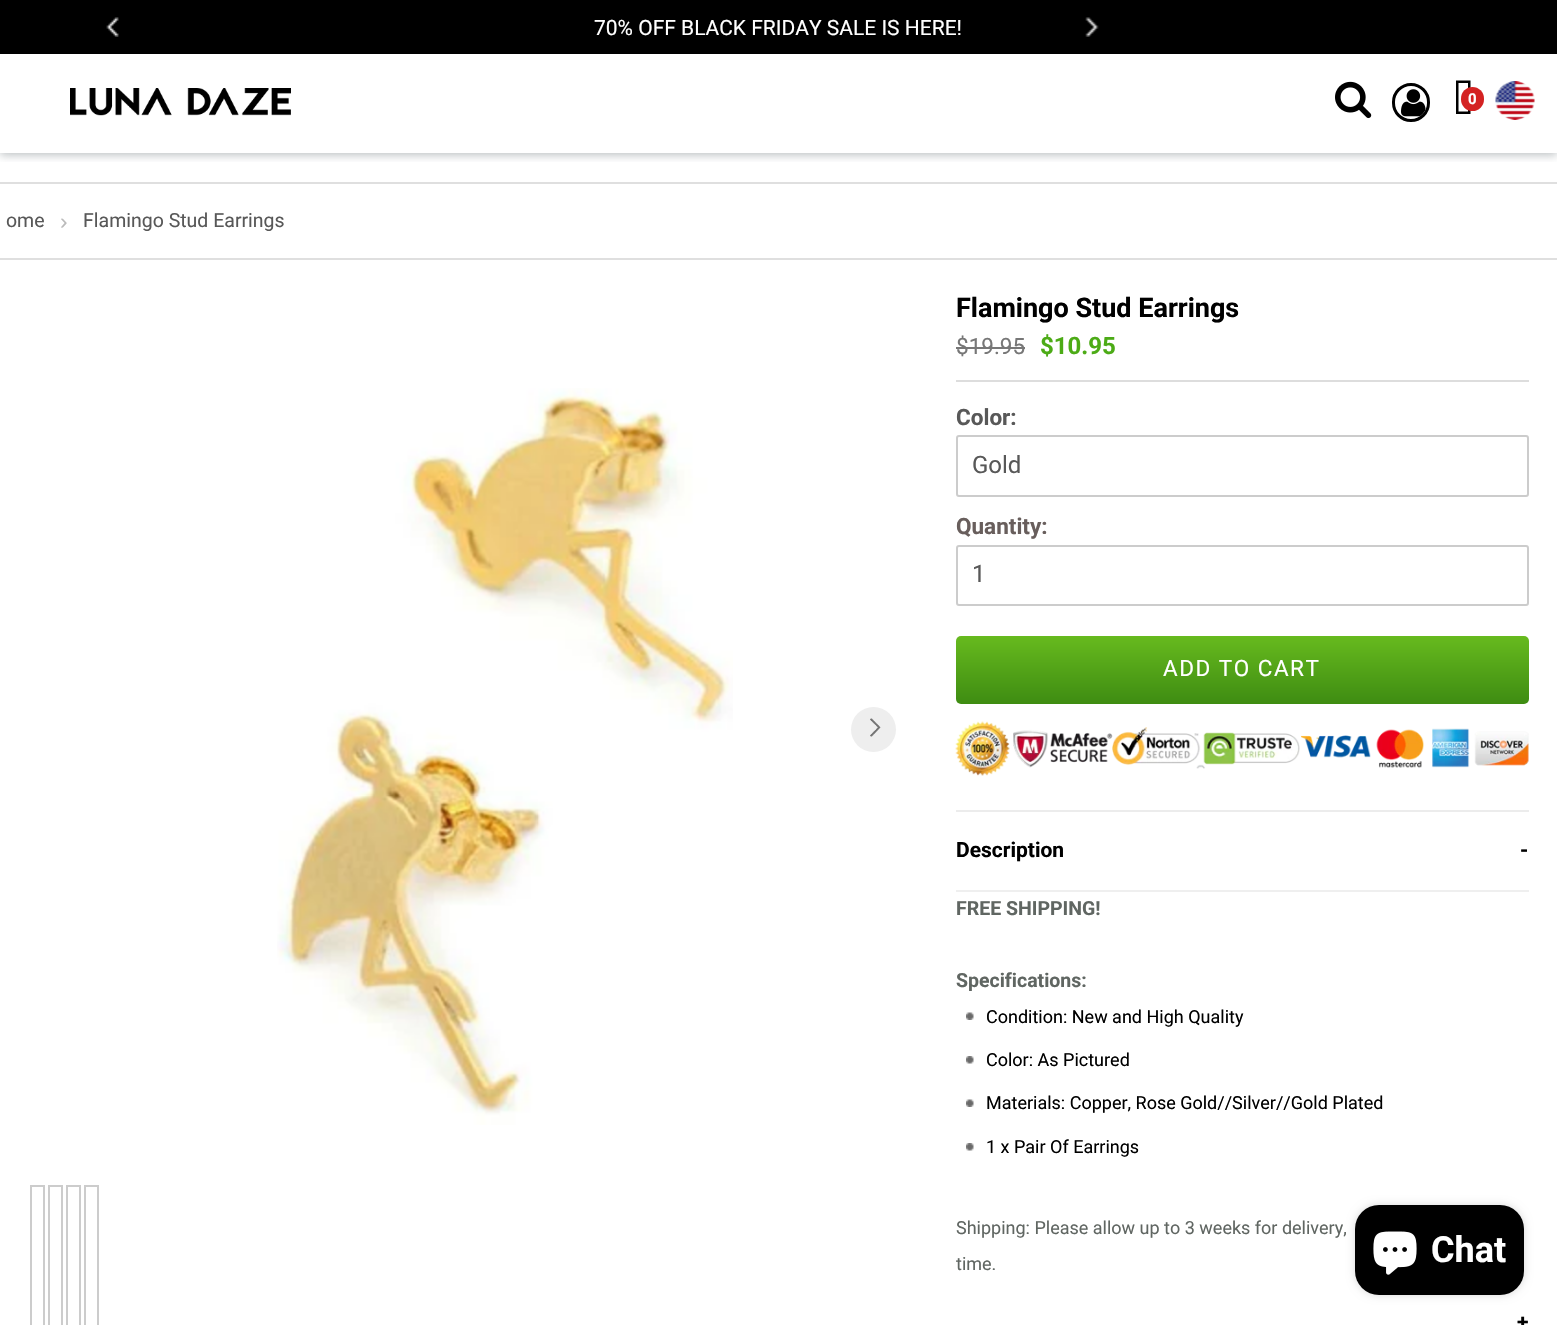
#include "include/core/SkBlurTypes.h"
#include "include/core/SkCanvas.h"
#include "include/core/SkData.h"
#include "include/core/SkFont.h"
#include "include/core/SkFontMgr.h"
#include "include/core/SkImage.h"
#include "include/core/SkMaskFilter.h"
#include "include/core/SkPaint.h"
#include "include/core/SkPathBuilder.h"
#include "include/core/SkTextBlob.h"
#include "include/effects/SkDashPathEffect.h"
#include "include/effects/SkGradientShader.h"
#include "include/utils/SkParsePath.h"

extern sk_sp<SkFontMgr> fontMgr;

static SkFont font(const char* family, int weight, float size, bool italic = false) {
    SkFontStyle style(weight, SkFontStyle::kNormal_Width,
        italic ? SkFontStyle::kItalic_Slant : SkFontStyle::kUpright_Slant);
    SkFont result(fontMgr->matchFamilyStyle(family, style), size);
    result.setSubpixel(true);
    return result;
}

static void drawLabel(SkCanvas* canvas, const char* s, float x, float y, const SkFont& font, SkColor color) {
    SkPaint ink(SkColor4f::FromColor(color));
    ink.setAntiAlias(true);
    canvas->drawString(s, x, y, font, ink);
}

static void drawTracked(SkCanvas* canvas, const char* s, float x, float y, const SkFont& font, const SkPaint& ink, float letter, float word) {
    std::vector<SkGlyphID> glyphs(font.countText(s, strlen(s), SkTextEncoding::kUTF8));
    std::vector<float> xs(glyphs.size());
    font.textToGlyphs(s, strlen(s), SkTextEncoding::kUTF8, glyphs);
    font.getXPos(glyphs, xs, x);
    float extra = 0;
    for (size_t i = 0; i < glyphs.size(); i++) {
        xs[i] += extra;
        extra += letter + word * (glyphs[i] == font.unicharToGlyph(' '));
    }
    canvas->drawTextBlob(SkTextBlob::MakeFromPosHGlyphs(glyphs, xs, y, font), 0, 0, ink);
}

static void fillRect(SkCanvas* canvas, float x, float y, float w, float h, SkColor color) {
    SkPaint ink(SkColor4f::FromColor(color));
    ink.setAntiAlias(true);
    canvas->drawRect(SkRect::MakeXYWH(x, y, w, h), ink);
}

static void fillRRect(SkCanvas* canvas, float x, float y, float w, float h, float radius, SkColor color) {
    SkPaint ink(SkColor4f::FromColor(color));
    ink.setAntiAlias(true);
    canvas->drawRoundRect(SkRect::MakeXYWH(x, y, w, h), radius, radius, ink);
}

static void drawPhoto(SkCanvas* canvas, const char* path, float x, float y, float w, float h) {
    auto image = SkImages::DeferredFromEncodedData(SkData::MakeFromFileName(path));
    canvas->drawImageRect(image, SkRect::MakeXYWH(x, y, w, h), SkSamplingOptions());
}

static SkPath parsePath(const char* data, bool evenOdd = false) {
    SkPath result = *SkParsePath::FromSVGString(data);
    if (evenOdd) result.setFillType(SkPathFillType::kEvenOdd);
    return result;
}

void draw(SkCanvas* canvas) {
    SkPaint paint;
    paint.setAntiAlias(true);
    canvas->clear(0xFFFFFFFF);
    canvas->save();
    canvas->clipRect(SkRect::MakeXYWH(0, 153, 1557, 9));
    paint.setColor(0x5939494C);
    paint.setMaskFilter(SkMaskFilter::MakeBlur(kNormal_SkBlurStyle, 4.5f));
    canvas->drawRect(SkRect::MakeXYWH(0, 2, 1557, 153), paint);
    paint.setMaskFilter(nullptr);
    canvas->restore();
    fillRect(canvas, 0, 0, 1557, 54, 0xFF000000);
    drawPhoto(canvas, "assets/img1.png", 106, 17, 13, 20);
    drawPhoto(canvas, "assets/img2.png", 1085, 17, 14, 20);
    SkFont font1 = font("Roboto", 400, 21);
    drawLabel(canvas, "70% OFF BLACK FRIDAY SALE IS HERE!", 594, 35, font1, 0xFFFFFFFF);
    drawPhoto(canvas, "assets/img3.png", 70, 88, 221, 28);
    drawPhoto(canvas, "assets/img4.png", 1335, 81, 37, 38);
    paint.setStroke(true);
    paint.setStrokeWidth(3);
    paint.setColor(0xFF000000);
    canvas->drawRoundRect(SkRect::MakeXYWH(1393.5f, 84.5f, 35, 36), 17.5f, 17.5f, paint);
    drawPhoto(canvas, "assets/img5.png", 1401, 89, 25, 28);
    paint.setStroke(false);
    canvas->drawPath(parsePath("M1458.5 111.5H1468V83H1458.5ZM1456 114V80.5H1470.5V114Z"), paint);
    fillRRect(canvas, 1461, 87, 23, 24, 11.5f, 0xFFD42222);
    SkFont font2 = font("Roboto", 700, 15);
    drawLabel(canvas, "0", 1468, 104, font2, 0xFFFFFFFF);
    drawPhoto(canvas, "assets/img6.png", 1495, 81, 40, 39);
    fillRect(canvas, 0, 182, 1557, 2, 0xFFDFDFDF);
    fillRect(canvas, 0, 258, 1557, 2, 0xFFDFDFDF);
    SkFont font3 = font("Roboto", 400, 19.5f);
    drawLabel(canvas, "ome", 6, 227, font3, 0xFF585858);
    SkFont font4 = font("Liberation Sans", 400, 22.5f);
    drawLabel(canvas, "›", 60, 229, font4, 0xFFBBBBBB);
    drawLabel(canvas, "Flamingo Stud Earrings", 83, 227, font3, 0xFF585858);
    drawPhoto(canvas, "assets/img7.png", 277, 388, 456, 737);
    paint.setColor(0xFFEEEEEE);
    canvas->drawCircle(873.5f, 729.5f, 22.5f, paint);
    drawPhoto(canvas, "assets/img8.png", 870, 718, 11, 19);
    paint.setStroke(true);
    paint.setStrokeWidth(2);
    paint.setColor(0xFFCCCCCC);
    canvas->drawRect(SkRect::MakeXYWH(31, 1186, 13, 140), paint);
    canvas->drawRect(SkRect::MakeXYWH(49, 1186, 13, 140), paint);
    canvas->drawRect(SkRect::MakeXYWH(67, 1186, 13, 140), paint);
    canvas->drawRect(SkRect::MakeXYWH(85, 1186, 13, 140), paint);
    SkFont font5 = font("Roboto", 700, 27);
    drawLabel(canvas, "Flamingo Stud Earrings", 956, 317, font5, 0xFF000000);
    SkFont font6 = font("Roboto", 400, 22.5f);
    drawLabel(canvas, "$19.95", 956, 354, font6, 0xFF777777);
    fillRect(canvas, 956, 347, 69, 2, 0xFF777777);
    SkFont font7 = font("Roboto", 700, 24);
    drawLabel(canvas, "$10.95", 1040, 354, font7, 0xFF4CAB16);
    fillRect(canvas, 956, 380, 573, 2, 0xFFDDDDDD);
    SkFont font8 = font("Roboto", 700, 22.5f);
    drawLabel(canvas, "Color:", 956, 425, font8, 0xFF585858);
    canvas->drawRoundRect(SkRect::MakeXYWH(957, 436, 571, 60), 2, 2, paint);
    SkFont font9 = font("Roboto", 400, 24);
    drawLabel(canvas, "Gold", 972, 473, font9, 0xFF585858);
    drawLabel(canvas, "Quantity:", 956, 534, font8, 0xFF685E5C);
    canvas->drawRoundRect(SkRect::MakeXYWH(957, 546, 571, 59), 2, 2, paint);
    drawLabel(canvas, "1", 972, 582, font9, 0xFF585858);
    paint.setStroke(false);
    {
        const SkColor colors[] = {0xFF67BA1E, 0xFF3E8C12};
        const float stops[] = {0, 1};
        const SkPoint ends[] = {{1242, 636}, {1242, 704}};
        paint.setShader(SkGradientShader::MakeLinear(ends, colors, stops, 2, SkTileMode::kClamp));
        paint.setAlpha(255);
    }
    canvas->drawRoundRect(SkRect::MakeXYWH(956, 636, 573, 68), 5, 5, paint);
    paint.setShader(nullptr);
    paint.setColor(0xFFFFFFFF);
    drawTracked(canvas, "ADD TO CART", 1163, 676, font6, paint, 1.5f, 0);
    drawPhoto(canvas, "assets/img9.png", 955, 721, 574, 55);
    fillRect(canvas, 956, 810, 573, 2, 0xFFECECEC);
    fillRect(canvas, 956, 890, 573, 2, 0xFFEFEFEF);
    SkFont font10 = font("Roboto", 700, 21);
    drawLabel(canvas, "Description", 956, 857, font10, 0xFF000000);
    drawLabel(canvas, "-", 1520, 857, font10, 0xFF000000);
    SkFont font11 = font("Roboto", 700, 19.5f);
    drawLabel(canvas, "FREE SHIPPING!", 956, 915, font11, 0xFF606662);
    drawLabel(canvas, "Specifications:", 956, 987, font11, 0xFF606662);
    drawPhoto(canvas, "assets/img10.png", 966, 1012, 8, 8);
    SkFont font12 = font("Roboto", 400, 18);
    drawLabel(canvas, "Condition: New and High Quality", 986, 1023, font12, 0xFF000000);
    drawPhoto(canvas, "assets/img11.png", 966, 1056, 8, 8);
    drawLabel(canvas, "Color: As Pictured", 986, 1066, font12, 0xFF000000);
    drawPhoto(canvas, "assets/img10.png", 966, 1099, 8, 8);
    drawLabel(canvas, "Materials: Copper, Rose Gold//Silver//Gold Plated", 986, 1109, font12, 0xFF000000);
    drawPhoto(canvas, "assets/img11.png", 966, 1143, 8, 8);
    drawLabel(canvas, "1 x Pair Of Earrings", 986, 1153, font12, 0xFF000000);
    drawLabel(canvas, "Shipping: Please allow up to 3 weeks for delivery,", 956, 1234, font12, 0xFF606662);
    drawLabel(canvas, "time.", 956, 1270, font12, 0xFF606662);
    drawLabel(canvas, "+", 1517, 1329, font10, 0xFF000000);
    paint.setColor(0x26000000);
    paint.setMaskFilter(SkMaskFilter::MakeBlur(kNormal_SkBlurStyle, 4));
    canvas->drawRoundRect(SkRect::MakeXYWH(1355, 1205, 169, 90), 24, 24, paint);
    paint.setMaskFilter(nullptr);
    fillRRect(canvas, 1355, 1205, 169, 90, 24, 0xFF000000);
    drawPhoto(canvas, "assets/img12.png", 1373, 1231, 44, 44);
    SkFont font13 = font("Roboto", 700, 36);
    drawLabel(canvas, "Chat", 1431, 1262, font13, 0xFFFFFFFF);
}
